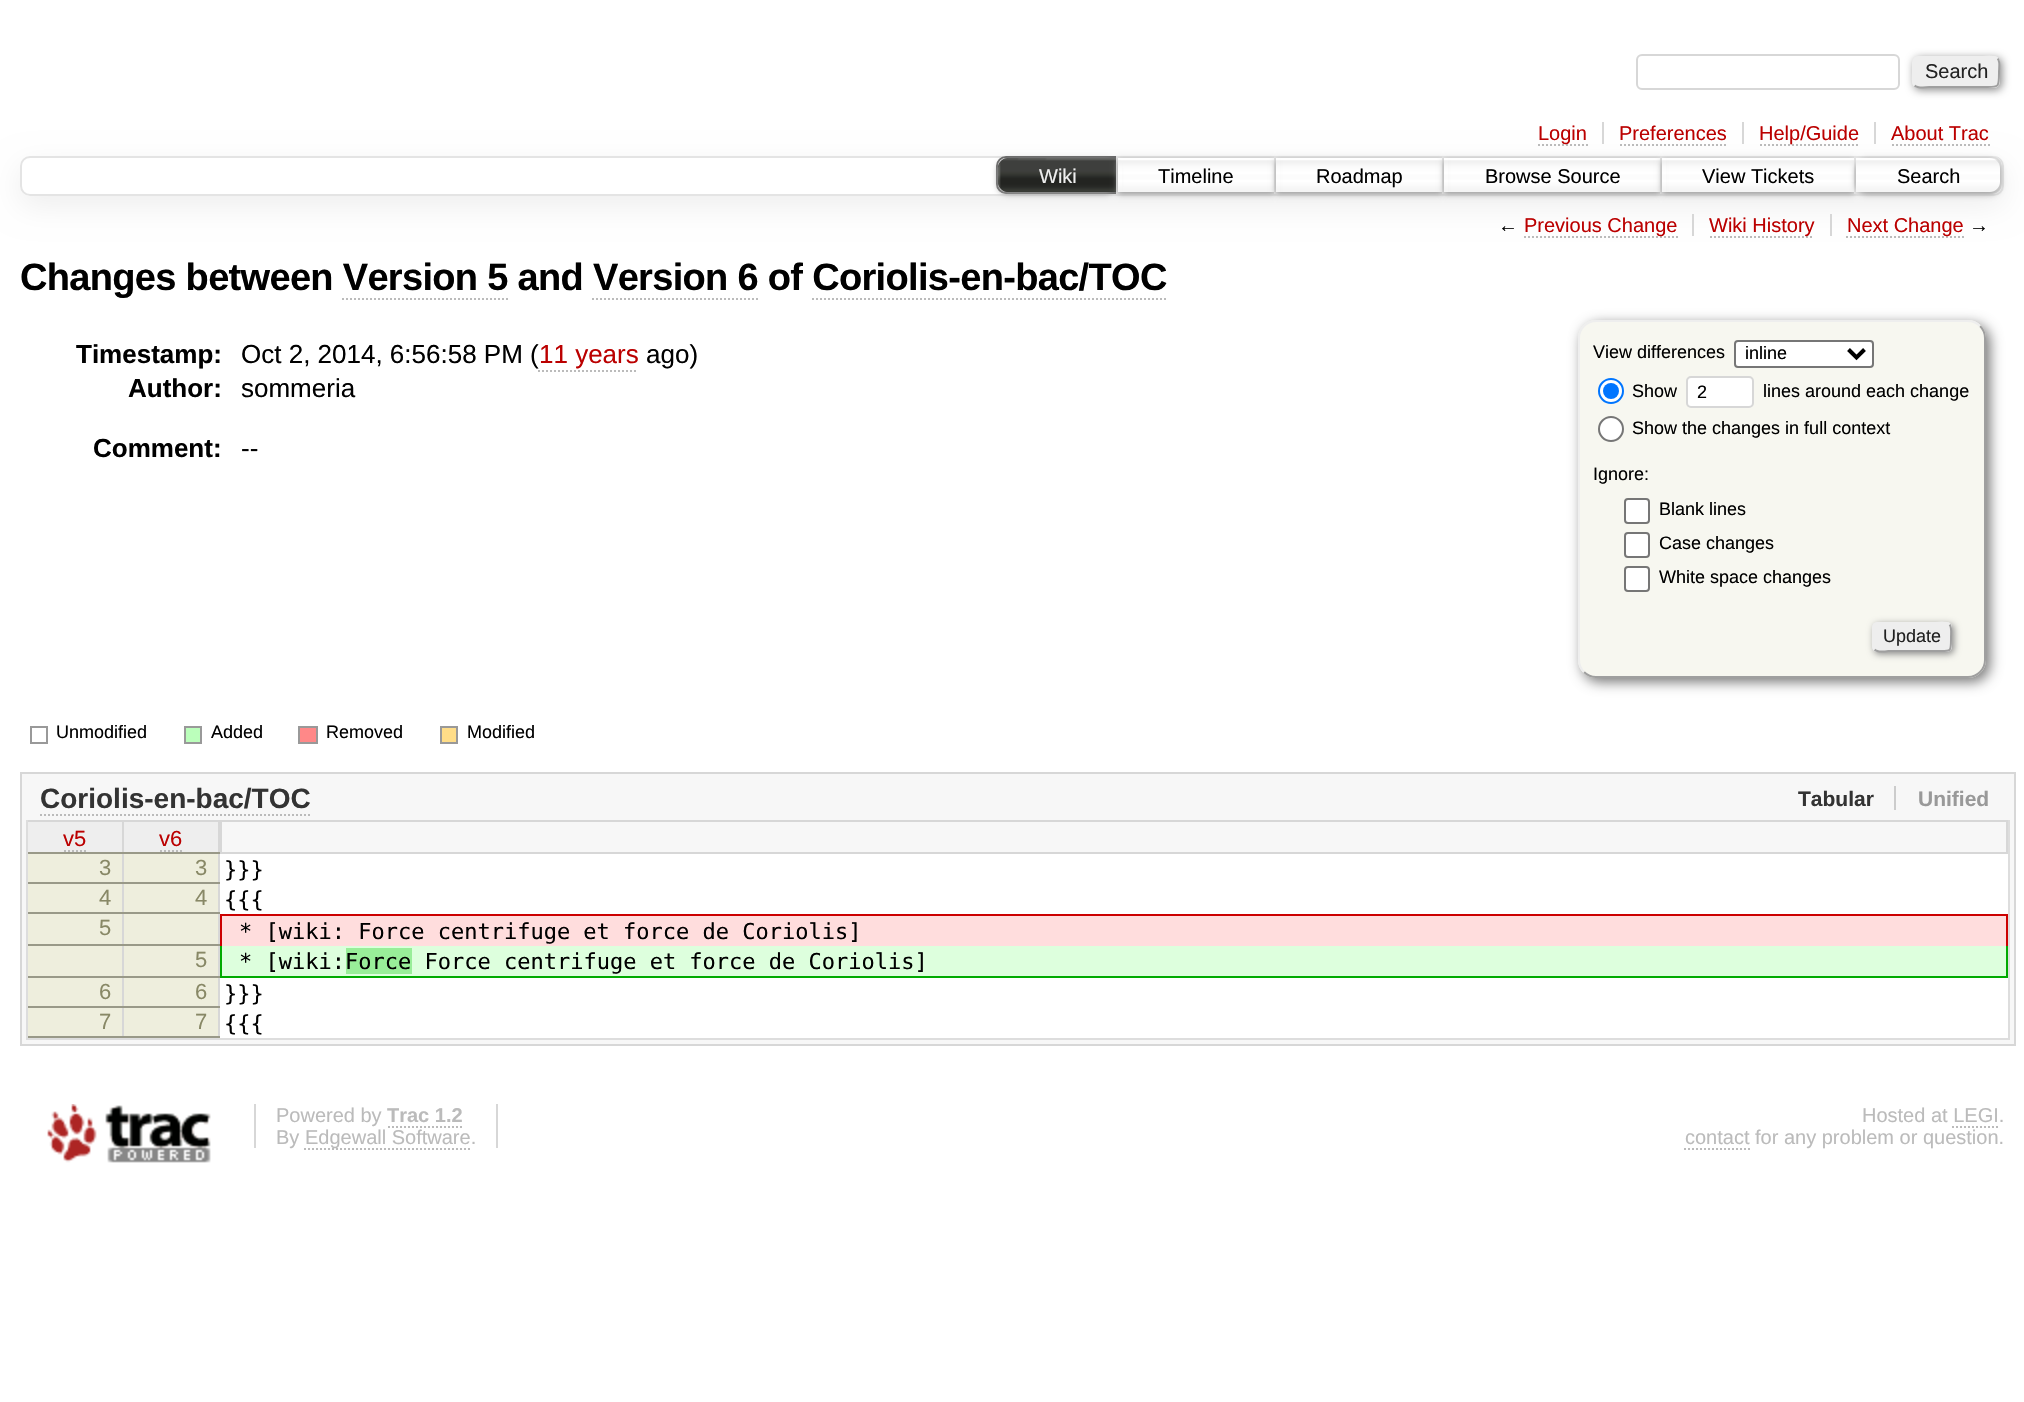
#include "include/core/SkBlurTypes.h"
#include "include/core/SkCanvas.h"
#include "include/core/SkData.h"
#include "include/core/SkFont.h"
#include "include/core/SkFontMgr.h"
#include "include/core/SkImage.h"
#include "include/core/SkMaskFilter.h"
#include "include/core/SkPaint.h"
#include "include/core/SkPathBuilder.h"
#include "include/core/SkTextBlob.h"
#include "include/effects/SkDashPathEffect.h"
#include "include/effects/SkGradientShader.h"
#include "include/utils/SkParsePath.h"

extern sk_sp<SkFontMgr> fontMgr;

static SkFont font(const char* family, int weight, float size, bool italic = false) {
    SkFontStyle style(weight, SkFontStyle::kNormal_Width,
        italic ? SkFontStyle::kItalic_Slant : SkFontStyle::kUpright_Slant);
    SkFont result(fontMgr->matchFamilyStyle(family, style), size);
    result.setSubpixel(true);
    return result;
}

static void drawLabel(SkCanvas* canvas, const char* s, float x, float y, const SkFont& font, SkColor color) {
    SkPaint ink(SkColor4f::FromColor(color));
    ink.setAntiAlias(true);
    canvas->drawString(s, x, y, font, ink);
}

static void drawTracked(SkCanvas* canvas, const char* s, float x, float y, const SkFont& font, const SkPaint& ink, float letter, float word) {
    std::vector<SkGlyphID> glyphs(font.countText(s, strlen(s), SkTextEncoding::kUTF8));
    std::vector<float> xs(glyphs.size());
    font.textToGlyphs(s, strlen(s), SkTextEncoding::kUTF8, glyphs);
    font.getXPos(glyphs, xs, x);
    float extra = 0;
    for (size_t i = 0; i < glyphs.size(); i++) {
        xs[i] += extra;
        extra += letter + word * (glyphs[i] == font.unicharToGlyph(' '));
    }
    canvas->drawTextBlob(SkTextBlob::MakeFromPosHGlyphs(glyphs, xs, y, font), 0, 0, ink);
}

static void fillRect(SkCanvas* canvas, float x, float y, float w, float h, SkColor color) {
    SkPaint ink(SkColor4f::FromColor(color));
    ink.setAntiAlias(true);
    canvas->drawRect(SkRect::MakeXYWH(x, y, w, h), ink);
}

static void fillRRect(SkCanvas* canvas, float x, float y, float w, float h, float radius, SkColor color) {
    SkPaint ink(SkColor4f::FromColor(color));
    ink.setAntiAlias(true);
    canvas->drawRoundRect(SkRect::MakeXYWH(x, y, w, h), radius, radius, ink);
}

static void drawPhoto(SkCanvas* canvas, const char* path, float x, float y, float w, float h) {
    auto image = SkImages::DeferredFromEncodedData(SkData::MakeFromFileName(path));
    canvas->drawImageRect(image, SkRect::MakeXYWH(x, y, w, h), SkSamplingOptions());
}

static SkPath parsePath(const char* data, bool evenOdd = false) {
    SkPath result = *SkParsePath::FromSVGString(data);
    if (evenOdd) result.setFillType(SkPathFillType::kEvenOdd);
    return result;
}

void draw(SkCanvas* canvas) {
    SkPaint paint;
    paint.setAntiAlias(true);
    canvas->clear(0xFFFFFFFF);
    paint.setStroke(true);
    paint.setStrokeWidth(2);
    paint.setColor(0xFFD7D7D7);
    canvas->drawRoundRect(SkRect::MakeXYWH(1637, 55, 262, 34), 5, 5, paint);
    paint.setStroke(false);
    paint.setColor(0xFF888888);
    paint.setMaskFilter(SkMaskFilter::MakeBlur(kNormal_SkBlurStyle, 4));
    canvas->drawRoundRect(SkRect::MakeXYWH(1914, 58, 88, 32), 6, 6, paint);
    paint.setMaskFilter(nullptr);
    fillRRect(canvas, 1912, 56, 88, 32, 6, 0xFFEEEEEE);
    paint.setStroke(true);
    paint.setColor(0xFF9F9F9F);
    canvas->drawPath(parsePath("M1997.5 58.5C2000.5 61 1999 68.5 1999 72C1999 89 1999.5 87 1981.5 87H1930.5C1929.5 87 1918 89 1914.5 85.5"), paint);
    paint.setColor(0xFFEEEEEE);
    canvas->drawPath(parsePath("M1914.5 85.5C1911.5 83 1913 75.5 1913 72C1913 55 1912.5 57 1930.5 57H1981.5C1982.5 57 1994 55 1997.5 58.5"), paint);
    SkFont font1 = font("Liberation Sans", 400, 20);
    drawLabel(canvas, "Search", 1925, 78, font1, 0xFF222222);
    canvas->save();
    canvas->clipPath(parsePath("M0 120H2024V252H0ZM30 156H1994C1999.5 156 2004 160.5 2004 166V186C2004 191.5 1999.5 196 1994 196H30C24.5 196 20 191.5 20 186V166C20 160.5 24.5 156 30 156Z", true), true);
    paint.setStroke(false);
    paint.setMaskFilter(SkMaskFilter::MakeBlur(kNormal_SkBlurStyle, 15));
    canvas->drawRoundRect(SkRect::MakeXYWH(20, 166, 1984, 40), 10, 10, paint);
    paint.setMaskFilter(nullptr);
    canvas->restore();
    fillRect(canvas, 1602, 122, 2, 22, 0xFFD7D7D7);
    paint.setStroke(true);
    paint.setColor(0xFFBBBBBB);
    paint.setPathEffect(SkDashPathEffect::Make({{2, 2}}, 0));
    canvas->drawPath(parsePath("M1538 145H1588"), paint);
    paint.setPathEffect(nullptr);
    drawLabel(canvas, "Login", 1538, 140, font1, 0xFFBB0000);
    fillRect(canvas, 1742, 122, 2, 22, 0xFFD7D7D7);
    drawLabel(canvas, "Preferences", 1619, 140, font1, 0xFFBB0000);
    paint.setPathEffect(SkDashPathEffect::Make({{2, 2}}, 0));
    canvas->drawPath(parsePath("M1620 145H1728"), paint);
    paint.setPathEffect(nullptr);
    fillRect(canvas, 1874, 122, 2, 22, 0xFFD7D7D7);
    paint.setPathEffect(SkDashPathEffect::Make({{2, 2}}, 0));
    canvas->drawPath(parsePath("M1760 145H1860"), paint);
    paint.setPathEffect(nullptr);
    drawLabel(canvas, "Help/Guide", 1759, 140, font1, 0xFFBB0000);
    drawLabel(canvas, "About Trac", 1891, 140, font1, 0xFFBB0000);
    paint.setPathEffect(SkDashPathEffect::Make({{2, 2}}, 0));
    canvas->drawPath(parsePath("M1892 145H1990"), paint);
    paint.setPathEffect(nullptr);
    paint.setColor(0xFFE4E4E4);
    canvas->drawRoundRect(SkRect::MakeXYWH(21, 157, 1982, 38), 9, 9, paint);
    paint.setStroke(false);
    paint.setColor(0xFFFFFFFF);
    canvas->drawPath(parsePath("M1006 156H1118V194H1006C1000.5 194 996 189.5 996 184V166C996 160.5 1000.5 156 1006 156Z"), paint);
    drawPhoto(canvas, "assets/img1.png", 996, 160, 12, 34);
    paint.setStroke(true);
    paint.setColor(0xFF666666);
    canvas->drawPath(parsePath("M1006 157H1117V193H1006C1001 193 997 189 997 184V166C997 161 1001 157 1006 157Z"), paint);
    paint.setStroke(false);
    paint.setColor(0xFF999999);
    paint.setMaskFilter(SkMaskFilter::MakeBlur(kNormal_SkBlurStyle, 3));
    canvas->drawRoundRect(SkRect::MakeXYWH(998, 160, 118, 34), 10, 10, paint);
    paint.setMaskFilter(nullptr);
    paint.setColor(0xFF000000);
    canvas->drawPath(parsePath("M1008 158H1116V192H1008C1002.5 192 998 187.5 998 182V168C998 162.5 1002.5 158 1008 158Z"), paint);
    drawPhoto(canvas, "assets/img2.png", 998, 158, 118, 34);
    drawLabel(canvas, "Wiki", 1039, 183, font1, 0xFFEEEEEE);
    fillRect(canvas, 1118, 161, 4, 31, 0xFFFFFFFF);
    drawPhoto(canvas, "assets/img3.png", 1118, 160, 156, 32);
    paint.setStroke(true);
    paint.setColor(0xFFE4E4E4);
    canvas->drawRect(SkRect::MakeXYWH(1117, 157, 158, 36), paint);
    canvas->save();
    canvas->clipPath(parsePath("M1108 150H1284V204H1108ZM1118 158H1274V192H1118Z", true), true);
    paint.setStroke(false);
    paint.setColor(0xFF999999);
    paint.setMaskFilter(SkMaskFilter::MakeBlur(kNormal_SkBlurStyle, 3));
    canvas->drawRect(SkRect::MakeXYWH(1118, 160, 156, 34), paint);
    paint.setMaskFilter(nullptr);
    canvas->restore();
    drawLabel(canvas, "Timeline", 1158, 183, font1, 0xFF000000);
    fillRect(canvas, 1276, 158, 4, 34, 0xFFFFFFFF);
    drawPhoto(canvas, "assets/img4.png", 1276, 160, 166, 32);
    paint.setStroke(true);
    paint.setColor(0xFFE4E4E4);
    canvas->drawRect(SkRect::MakeXYWH(1275, 157, 168, 36), paint);
    canvas->save();
    canvas->clipPath(parsePath("M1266 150H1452V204H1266ZM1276 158H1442V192H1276Z", true), true);
    paint.setStroke(false);
    paint.setColor(0xFF999999);
    paint.setMaskFilter(SkMaskFilter::MakeBlur(kNormal_SkBlurStyle, 3));
    canvas->drawRect(SkRect::MakeXYWH(1276, 160, 166, 34), paint);
    paint.setMaskFilter(nullptr);
    canvas->restore();
    drawLabel(canvas, "Roadmap", 1316, 183, font1, 0xFF000000);
    fillRect(canvas, 1444, 158, 4, 34, 0xFFFFFFFF);
    drawPhoto(canvas, "assets/img5.png", 1444, 160, 216, 32);
    paint.setStroke(true);
    paint.setColor(0xFFE4E4E4);
    canvas->drawRect(SkRect::MakeXYWH(1443, 157, 218, 36), paint);
    canvas->save();
    canvas->clipPath(parsePath("M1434 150H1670V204H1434ZM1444 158H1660V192H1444Z", true), true);
    paint.setStroke(false);
    paint.setColor(0xFF999999);
    paint.setMaskFilter(SkMaskFilter::MakeBlur(kNormal_SkBlurStyle, 3));
    canvas->drawRect(SkRect::MakeXYWH(1444, 160, 216, 34), paint);
    paint.setMaskFilter(nullptr);
    canvas->restore();
    drawLabel(canvas, "Browse Source", 1485, 183, font1, 0xFF000000);
    fillRect(canvas, 1662, 158, 4, 34, 0xFFFFFFFF);
    drawPhoto(canvas, "assets/img6.png", 1662, 160, 192, 32);
    paint.setStroke(true);
    paint.setColor(0xFFE4E4E4);
    canvas->drawRect(SkRect::MakeXYWH(1661, 157, 194, 36), paint);
    canvas->save();
    canvas->clipPath(parsePath("M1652 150H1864V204H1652ZM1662 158H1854V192H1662Z", true), true);
    paint.setStroke(false);
    paint.setColor(0xFF999999);
    paint.setMaskFilter(SkMaskFilter::MakeBlur(kNormal_SkBlurStyle, 3));
    canvas->drawRect(SkRect::MakeXYWH(1662, 160, 192, 34), paint);
    paint.setMaskFilter(nullptr);
    canvas->restore();
    drawLabel(canvas, "View Tickets", 1702, 183, font1, 0xFF000000);
    paint.setColor(0xFFFFFFFF);
    canvas->drawPath(parsePath("M1854 156H1992C1997.5 156 2002 160.5 2002 166V184C2002 189.5 1997.5 194 1992 194H1854Z"), paint);
    drawPhoto(canvas, "assets/img7.png", 1856, 160, 146, 34);
    paint.setStroke(true);
    paint.setColor(0xFFE4E4E4);
    canvas->drawPath(parsePath("M1855 157H1992C1997 157 2001 161 2001 166V184C2001 189 1997 193 1992 193H1855Z"), paint);
    canvas->save();
    canvas->clipPath(parsePath("M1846 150H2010V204H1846ZM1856 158H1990C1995.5 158 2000 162.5 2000 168V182C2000 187.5 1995.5 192 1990 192H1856Z", true), true);
    paint.setStroke(false);
    paint.setColor(0xFF999999);
    paint.setMaskFilter(SkMaskFilter::MakeBlur(kNormal_SkBlurStyle, 3));
    canvas->drawRoundRect(SkRect::MakeXYWH(1856, 160, 144, 34), 10, 10, paint);
    paint.setMaskFilter(nullptr);
    canvas->restore();
    drawLabel(canvas, "Search", 1897, 183, font1, 0xFF000000);
    fillRect(canvas, 1692, 214, 2, 22, 0xFFD7D7D7);
    drawLabel(canvas, "←", 1498, 232, font1, 0xFF000000);
    paint.setStroke(true);
    paint.setColor(0xFFBBBBBB);
    paint.setPathEffect(SkDashPathEffect::Make({{2, 2}}, 0));
    canvas->drawPath(parsePath("M1524 237H1678"), paint);
    paint.setPathEffect(nullptr);
    drawLabel(canvas, "Previous Change", 1524, 232, font1, 0xFFBB0000);
    fillRect(canvas, 1830, 214, 2, 22, 0xFFD7D7D7);
    paint.setPathEffect(SkDashPathEffect::Make({{2, 2}}, 0));
    canvas->drawPath(parsePath("M1710 237H1814"), paint);
    paint.setPathEffect(nullptr);
    drawLabel(canvas, "Wiki History", 1709, 232, font1, 0xFFBB0000);
    paint.setPathEffect(SkDashPathEffect::Make({{2, 2}}, 0));
    canvas->drawPath(parsePath("M1846 237H1964"), paint);
    paint.setPathEffect(nullptr);
    drawLabel(canvas, "Next Change", 1847, 232, font1, 0xFFBB0000);
    drawLabel(canvas, "→", 1969, 232, font1, 0xFF000000);
    SkFont font2 = font("Liberation Sans", 700, 38);
    paint.setStroke(false);
    paint.setColor(0xFF000000);
    drawTracked(canvas, "Changes between Version 5 and Version 6 of Coriolis-en-bac/TOC", 20, 290, font2, paint, -0.68f, 0);
    paint.setStroke(true);
    paint.setColor(0xFFBBBBBB);
    paint.setPathEffect(SkDashPathEffect::Make({{2, 2}}, 0));
    canvas->drawPath(parsePath("M342 299H508"), paint);
    paint.setPathEffect(nullptr);
    paint.setPathEffect(SkDashPathEffect::Make({{2, 2}}, 0));
    canvas->drawPath(parsePath("M592 299H758"), paint);
    paint.setPathEffect(nullptr);
    paint.setPathEffect(SkDashPathEffect::Make({{2, 2}}, 0));
    canvas->drawPath(parsePath("M812 299H1166"), paint);
    paint.setPathEffect(nullptr);
    SkFont font3 = font("Liberation Sans", 700, 26);
    drawLabel(canvas, "Timestamp:", 76, 363, font3, 0xFF000000);
    SkFont font4 = font("Liberation Sans", 400, 26);
    drawLabel(canvas, "Oct 2, 2014, 6:56:58 PM (", 241, 363, font4, 0xFF000000);
    drawLabel(canvas, "11 years", 539, 363, font4, 0xFFBB0000);
    paint.setPathEffect(SkDashPathEffect::Make({{2, 2}}, 0));
    canvas->drawPath(parsePath("M538 371H638"), paint);
    paint.setPathEffect(nullptr);
    drawLabel(canvas, "ago)", 646, 363, font4, 0xFF000000);
    drawLabel(canvas, "Author:", 128, 397, font3, 0xFF000000);
    drawLabel(canvas, "sommeria", 241, 397, font4, 0xFF000000);
    drawLabel(canvas, "Comment:", 93, 457, font3, 0xFF000000);
    drawLabel(canvas, "--", 241, 457, font4, 0xFF000000);
    paint.setStroke(false);
    paint.setColor(0xFF777777);
    paint.setMaskFilter(SkMaskFilter::MakeBlur(kNormal_SkBlurStyle, 6.5f));
    canvas->drawRoundRect(SkRect::MakeXYWH(1582, 324, 408, 358), 18, 18, paint);
    paint.setMaskFilter(nullptr);
    fillRRect(canvas, 1578, 320, 408, 358, 18, 0xFFF7F7F0);
    paint.setStroke(true);
    paint.setColor(0xFF9F9F9F);
    canvas->drawPath(parsePath("M1980 326C1983 329 1985 333.5 1985 338V660C1985 664.5 1983 669 1980 672C1977 675 1972.5 677 1968 677H1596C1591.5 677 1587 675 1584 672"), paint);
    paint.setColor(0xFFEEEEEE);
    canvas->drawPath(parsePath("M1584 672C1581 669 1579 664.5 1579 660V338C1579 333.5 1581 329 1584 326C1587 323 1591.5 321 1596 321H1968C1972.5 321 1977 323 1980 326"), paint);
    SkFont font5 = font("Liberation Sans", 400, 18);
    drawLabel(canvas, "View differences", 1593, 358, font5, 0xFF000000);
    paint.setStroke(false);
    paint.setColor(0xFFFFFFFF);
    canvas->drawRoundRect(SkRect::MakeXYWH(1735, 341, 138, 26), 3, 3, paint);
    paint.setStroke(true);
    paint.setColor(0xFF767676);
    canvas->drawRoundRect(SkRect::MakeXYWH(1735, 341, 138, 26), 3, 3, paint);
    paint.setStrokeWidth(4);
    paint.setColor(0xFF000000);
    canvas->drawPath(parsePath("M1848.5 349.5L1856.5 357.5L1864.5 349.5"), paint);
    drawLabel(canvas, "inline", 1745, 359, font5, 0xFF000000);
    paint.setStroke(false);
    paint.setColor(0xFFFFFFFF);
    canvas->drawCircle(1611, 391, 12, paint);
    paint.setStroke(true);
    paint.setStrokeWidth(2);
    paint.setColor(0xFF0075FF);
    canvas->drawCircle(1611, 391, 12, paint);
    paint.setStroke(false);
    canvas->drawCircle(1611, 391, 8, paint);
    drawLabel(canvas, "Show", 1632, 397, font5, 0xFF000000);
    paint.setColor(0xFFFFFFFF);
    canvas->drawRoundRect(SkRect::MakeXYWH(1687, 377, 66, 30), 4, 4, paint);
    paint.setStroke(true);
    paint.setColor(0xFFD7D7D7);
    canvas->drawRoundRect(SkRect::MakeXYWH(1687, 377, 66, 30), 4, 4, paint);
    drawLabel(canvas, "2", 1697, 398, font5, 0xFF000000);
    drawLabel(canvas, "lines around each change", 1763, 397, font5, 0xFF000000);
    paint.setStroke(false);
    paint.setColor(0xFFFFFFFF);
    canvas->drawCircle(1611, 429, 12, paint);
    paint.setStroke(true);
    paint.setColor(0xFF767676);
    canvas->drawCircle(1611, 429, 12, paint);
    drawLabel(canvas, "Show the changes in full context", 1632, 434, font5, 0xFF000000);
    drawLabel(canvas, "Ignore:", 1593, 480, font5, 0xFF000000);
    paint.setStroke(false);
    paint.setColor(0xFFFFFFFF);
    canvas->drawRoundRect(SkRect::MakeXYWH(1625, 499, 24, 24), 3, 3, paint);
    paint.setStroke(true);
    paint.setColor(0xFF767676);
    canvas->drawRoundRect(SkRect::MakeXYWH(1625, 499, 24, 24), 3, 3, paint);
    drawLabel(canvas, "Blank lines", 1659, 515, font5, 0xFF000000);
    paint.setStroke(false);
    paint.setColor(0xFFFFFFFF);
    canvas->drawRoundRect(SkRect::MakeXYWH(1625, 533, 24, 24), 3, 3, paint);
    paint.setStroke(true);
    paint.setColor(0xFF767676);
    canvas->drawRoundRect(SkRect::MakeXYWH(1625, 533, 24, 24), 3, 3, paint);
    drawLabel(canvas, "Case changes", 1659, 549, font5, 0xFF000000);
    paint.setStroke(false);
    paint.setColor(0xFFFFFFFF);
    canvas->drawRoundRect(SkRect::MakeXYWH(1625, 567, 24, 24), 3, 3, paint);
    paint.setStroke(true);
    paint.setColor(0xFF767676);
    canvas->drawRoundRect(SkRect::MakeXYWH(1625, 567, 24, 24), 3, 3, paint);
    drawLabel(canvas, "White space changes", 1659, 583, font5, 0xFF000000);
    paint.setStroke(false);
    paint.setColor(0xFF888888);
    paint.setMaskFilter(SkMaskFilter::MakeBlur(kNormal_SkBlurStyle, 3.5f));
    canvas->drawRoundRect(SkRect::MakeXYWH(1874, 624, 80, 30), 5, 5, paint);
    paint.setMaskFilter(nullptr);
    fillRRect(canvas, 1872, 622, 80, 30, 5, 0xFFEEEEEE);
    paint.setStroke(true);
    paint.setColor(0xFF9F9F9F);
    canvas->drawPath(parsePath("M1949.5 624.5C1952 627 1951 634 1951 637C1951 653 1952 651 1935 651H1889C1888.5 651 1877.5 653 1874.5 649.5"), paint);
    paint.setColor(0xFFEEEEEE);
    canvas->drawPath(parsePath("M1874.5 649.5C1872 647 1873 640 1873 637C1873 621 1872 623 1889 623H1935C1935.5 623 1946.5 621 1949.5 624.5"), paint);
    drawLabel(canvas, "Update", 1883, 642, font5, 0xFF222222);
    paint.setColor(0xFF999999);
    canvas->drawRect(SkRect::MakeXYWH(31, 727, 16, 16), paint);
    drawLabel(canvas, "Unmodified", 56, 738, font5, 0xFF000000);
    paint.setStroke(false);
    paint.setColor(0xFFBBFFBB);
    canvas->drawRect(SkRect::MakeXYWH(185, 727, 16, 16), paint);
    paint.setStroke(true);
    paint.setColor(0xFF999999);
    canvas->drawRect(SkRect::MakeXYWH(185, 727, 16, 16), paint);
    drawLabel(canvas, "Added", 211, 738, font5, 0xFF000000);
    paint.setStroke(false);
    paint.setColor(0xFFFF8888);
    canvas->drawRect(SkRect::MakeXYWH(299, 727, 18, 16), paint);
    paint.setStroke(true);
    paint.setColor(0xFF999999);
    canvas->drawRect(SkRect::MakeXYWH(299, 727, 18, 16), paint);
    drawLabel(canvas, "Removed", 326, 738, font5, 0xFF000000);
    paint.setStroke(false);
    paint.setColor(0xFFFFDD88);
    canvas->drawRect(SkRect::MakeXYWH(441, 727, 16, 16), paint);
    paint.setStroke(true);
    paint.setColor(0xFF999999);
    canvas->drawRect(SkRect::MakeXYWH(441, 727, 16, 16), paint);
    drawLabel(canvas, "Modified", 467, 738, font5, 0xFF000000);
    paint.setStroke(false);
    paint.setColor(0xFFF7F7F7);
    canvas->drawRect(SkRect::MakeXYWH(21, 773, 1994, 272), paint);
    paint.setStroke(true);
    paint.setColor(0xFFD7D7D7);
    canvas->drawRect(SkRect::MakeXYWH(21, 773, 1994, 272), paint);
    SkFont font6 = font("Liberation Sans", 700, 28);
    drawLabel(canvas, "Coriolis-en-bac/TOC", 40, 808, font6, 0xFF333333);
    paint.setColor(0xFFBBBBBB);
    paint.setPathEffect(SkDashPathEffect::Make({{2, 2}}, 0));
    canvas->drawPath(parsePath("M40 815H310"), paint);
    paint.setPathEffect(nullptr);
    SkFont font7 = font("Liberation Sans", 700, 21);
    drawLabel(canvas, "Tabular", 1798, 806, font7, 0xFF333333);
    drawLabel(canvas, "Unified", 1918, 806, font7, 0xFF999999);
    fillRect(canvas, 1894, 786, 2, 24, 0xFFCCCCCC);
    fillRect(canvas, 2008, 820, 2, 220, 0xFFDDDDDD);
    fillRect(canvas, 26, 1038, 1984, 2, 0xFFDDDDDD);
    fillRect(canvas, 26, 820, 2, 220, 0xFFDDDDDD);
    fillRect(canvas, 28, 822, 94, 30, 0xFFEEEEEE);
    fillRect(canvas, 28, 820, 192, 2, 0xFFD7D7D7);
    fillRect(canvas, 122, 820, 2, 218, 0xFFD7D7D7);
    fillRect(canvas, 28, 852, 96, 2, 0xFF999988);
    SkFont font8 = font("Liberation Sans", 400, 22);
    drawLabel(canvas, "v5", 63, 846, font8, 0xFFBB0000);
    paint.setPathEffect(SkDashPathEffect::Make({{2, 2}}, 0));
    canvas->drawPath(parsePath("M64 851H86"), paint);
    paint.setPathEffect(nullptr);
    fillRect(canvas, 124, 822, 94, 30, 0xFFEEEEEE);
    fillRect(canvas, 218, 820, 2, 218, 0xFFD7D7D7);
    fillRect(canvas, 124, 852, 96, 2, 0xFF999988);
    drawLabel(canvas, "v6", 159, 846, font8, 0xFFBB0000);
    paint.setPathEffect(SkDashPathEffect::Make({{2, 2}}, 0));
    canvas->drawPath(parsePath("M160 851H182"), paint);
    paint.setPathEffect(nullptr);
    paint.setColor(0xFFD7D7D7);
    canvas->drawRect(SkRect::MakeXYWH(221, 821, 1786, 32), paint);
    fillRect(canvas, 28, 854, 94, 28, 0xFFEEEEDD);
    fillRect(canvas, 28, 882, 192, 2, 0xFF999988);
    drawLabel(canvas, "3", 99, 875, font8, 0xFF888866);
    fillRect(canvas, 124, 854, 94, 28, 0xFFEEEEDD);
    drawLabel(canvas, "3", 195, 875, font8, 0xFF888866);
    fillRect(canvas, 220, 854, 1788, 60, 0xFFFFFFFF);
    SkFont font9 = font("DejaVu Sans Mono", 400, 22);
    drawLabel(canvas, "}}}", 224, 877, font9, 0xFF000000);
    fillRect(canvas, 28, 884, 94, 28, 0xFFEEEEDD);
    fillRect(canvas, 28, 912, 192, 2, 0xFF999988);
    drawLabel(canvas, "4", 99, 905, font8, 0xFF888866);
    fillRect(canvas, 124, 884, 94, 28, 0xFFEEEEDD);
    drawLabel(canvas, "4", 195, 905, font8, 0xFF888866);
    drawLabel(canvas, "{{{", 224, 907, font9, 0xFF000000);
    fillRect(canvas, 28, 914, 94, 30, 0xFFEEEEDD);
    fillRect(canvas, 28, 944, 192, 2, 0xFF999988);
    drawLabel(canvas, "5", 99, 935, font8, 0xFF888866);
    fillRect(canvas, 124, 914, 94, 30, 0xFFEEEEDD);
    fillRect(canvas, 222, 916, 1784, 30, 0xFFFFDDDD);
    fillRect(canvas, 220, 914, 1788, 2, 0xFFCC0000);
    fillRect(canvas, 2006, 914, 2, 32, 0xFFCC0000);
    fillRect(canvas, 220, 914, 2, 32, 0xFFCC0000);
    drawLabel(canvas, "* [wiki: Force centrifuge et force de Coriolis]", 239, 939, font9, 0xFF000000);
    fillRect(canvas, 28, 946, 94, 30, 0xFFEEEEDD);
    fillRect(canvas, 28, 976, 192, 2, 0xFF999988);
    fillRect(canvas, 124, 946, 94, 30, 0xFFEEEEDD);
    drawLabel(canvas, "5", 195, 967, font8, 0xFF888866);
    fillRect(canvas, 222, 946, 1784, 30, 0xFFDDFFDD);
    fillRect(canvas, 2006, 946, 2, 32, 0xFF00AA00);
    fillRect(canvas, 220, 976, 1788, 2, 0xFF00AA00);
    fillRect(canvas, 220, 946, 2, 32, 0xFF00AA00);
    drawLabel(canvas, "* [wiki:", 239, 969, font9, 0xFF000000);
    fillRect(canvas, 346, 948, 66, 26, 0xFF99EE99);
    drawLabel(canvas, "Force Force centrifuge et force de Coriolis]", 345, 969, font9, 0xFF000000);
    fillRect(canvas, 28, 978, 94, 28, 0xFFEEEEDD);
    fillRect(canvas, 28, 1006, 192, 2, 0xFF999988);
    drawLabel(canvas, "6", 99, 999, font8, 0xFF888866);
    fillRect(canvas, 124, 978, 94, 28, 0xFFEEEEDD);
    drawLabel(canvas, "6", 195, 999, font8, 0xFF888866);
    fillRect(canvas, 220, 978, 1788, 60, 0xFFFFFFFF);
    drawLabel(canvas, "}}}", 224, 1001, font9, 0xFF000000);
    fillRect(canvas, 28, 1008, 94, 28, 0xFFEEEEDD);
    fillRect(canvas, 28, 1036, 192, 2, 0xFF999988);
    drawLabel(canvas, "7", 99, 1029, font8, 0xFF888866);
    fillRect(canvas, 124, 1008, 94, 28, 0xFFEEEEDD);
    drawLabel(canvas, "7", 195, 1029, font8, 0xFF888866);
    drawLabel(canvas, "{{{", 224, 1031, font9, 0xFF000000);
    drawPhoto(canvas, "assets/img8.png", 47, 1104, 164, 59);
    fillRect(canvas, 496, 1104, 2, 44, 0xFFD7D7D7);
    fillRect(canvas, 254, 1104, 2, 44, 0xFFD7D7D7);
    drawLabel(canvas, "Powered by", 276, 1122, font1, 0xFFBBBBBB);
    SkFont font10 = font("Liberation Sans", 700, 20);
    drawLabel(canvas, "Trac 1.2", 387, 1122, font10, 0xFFBBBBBB);
    paint.setColor(0xFFBBBBBB);
    paint.setPathEffect(SkDashPathEffect::Make({{2, 2}}, 0));
    canvas->drawPath(parsePath("M388 1127H462"), paint);
    paint.setPathEffect(nullptr);
    drawLabel(canvas, "By", 276, 1144, font1, 0xFFBBBBBB);
    paint.setPathEffect(SkDashPathEffect::Make({{2, 2}}, 0));
    canvas->drawPath(parsePath("M304 1149H470"), paint);
    paint.setPathEffect(nullptr);
    drawLabel(canvas, "Edgewall Software.", 305, 1144, font1, 0xFFBBBBBB);
    drawLabel(canvas, "Hosted at LEGI.", 1862, 1122, font1, 0xFFBBBBBB);
    paint.setPathEffect(SkDashPathEffect::Make({{2, 2}}, 0));
    canvas->drawPath(parsePath("M1952 1127H1998"), paint);
    paint.setPathEffect(nullptr);
    paint.setPathEffect(SkDashPathEffect::Make({{2, 2}}, 0));
    canvas->drawPath(parsePath("M1684 1149H1750"), paint);
    paint.setPathEffect(nullptr);
    drawLabel(canvas, "contact for any problem or question.", 1685, 1144, font1, 0xFFBBBBBB);
}
